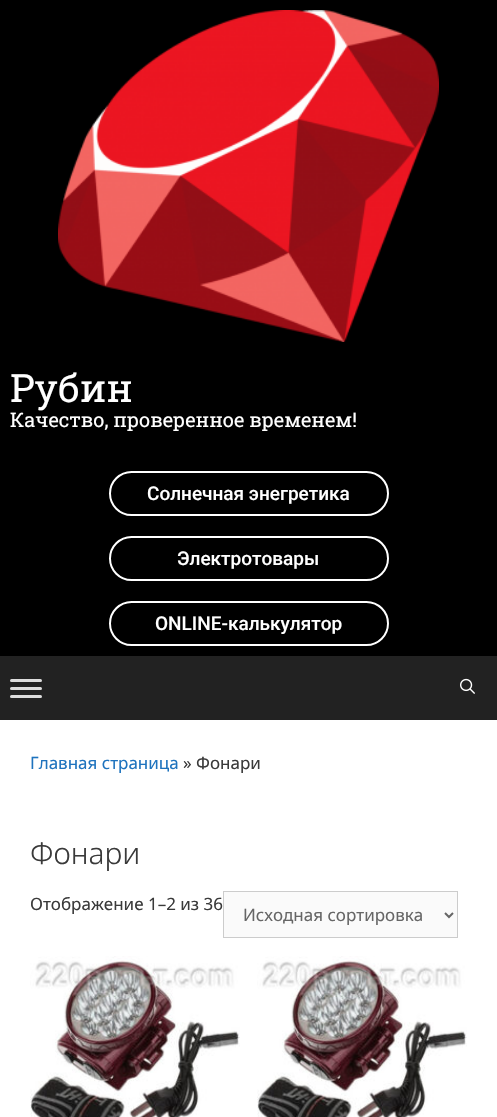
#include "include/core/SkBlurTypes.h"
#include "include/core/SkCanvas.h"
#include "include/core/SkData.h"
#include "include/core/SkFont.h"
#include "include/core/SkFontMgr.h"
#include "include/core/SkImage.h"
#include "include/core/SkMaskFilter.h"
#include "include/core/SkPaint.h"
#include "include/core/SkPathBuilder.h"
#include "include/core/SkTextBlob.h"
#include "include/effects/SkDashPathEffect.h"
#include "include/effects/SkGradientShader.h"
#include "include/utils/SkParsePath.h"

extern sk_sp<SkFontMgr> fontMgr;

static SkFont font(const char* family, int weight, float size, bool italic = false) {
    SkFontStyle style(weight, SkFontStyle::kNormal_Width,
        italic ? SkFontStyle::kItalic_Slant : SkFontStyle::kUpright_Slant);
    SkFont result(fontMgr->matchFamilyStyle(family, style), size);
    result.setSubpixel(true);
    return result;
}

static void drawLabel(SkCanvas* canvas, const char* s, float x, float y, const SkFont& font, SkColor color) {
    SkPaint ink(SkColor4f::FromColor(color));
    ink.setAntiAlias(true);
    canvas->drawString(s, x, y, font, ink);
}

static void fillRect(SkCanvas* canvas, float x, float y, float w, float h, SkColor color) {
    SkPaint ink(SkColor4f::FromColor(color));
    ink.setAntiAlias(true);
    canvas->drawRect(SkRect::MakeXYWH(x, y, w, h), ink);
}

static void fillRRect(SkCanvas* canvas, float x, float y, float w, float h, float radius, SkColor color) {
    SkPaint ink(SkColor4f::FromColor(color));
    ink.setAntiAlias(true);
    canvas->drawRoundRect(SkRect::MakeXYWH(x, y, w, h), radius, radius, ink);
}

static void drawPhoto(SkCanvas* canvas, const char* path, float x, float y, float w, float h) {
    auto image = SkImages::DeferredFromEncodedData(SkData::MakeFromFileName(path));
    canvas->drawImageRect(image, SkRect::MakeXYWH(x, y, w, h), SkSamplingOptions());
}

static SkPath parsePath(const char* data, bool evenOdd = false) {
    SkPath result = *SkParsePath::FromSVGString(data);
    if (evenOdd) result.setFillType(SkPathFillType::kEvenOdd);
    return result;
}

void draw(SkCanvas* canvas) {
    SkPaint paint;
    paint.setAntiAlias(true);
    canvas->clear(0xFF222222);
    fillRect(canvas, 0, 0, 497, 656, 0xFF000000);
    drawPhoto(canvas, "assets/img1.png", 58, 10, 381, 332);
    SkFont font1 = font("Roboto Slab", 400, 39);
    drawLabel(canvas, "Рубин", 10, 402, font1, 0xFFFFFFFF);
    SkFont font2 = font("Roboto Slab", 400, 20);
    drawLabel(canvas, "Качество, проверенное временем!", 10, 427, font2, 0xFFFFFFFF);
    paint.setStroke(true);
    paint.setStrokeWidth(2);
    paint.setColor(0xFFFFFFFF);
    canvas->drawRoundRect(SkRect::MakeXYWH(110, 472, 278, 43), 21.5f, 21.5f, paint);
    SkFont font3 = font("Roboto", 500, 19);
    drawLabel(canvas, "Солнечная энегретика", 147, 500, font3, 0xFFFFFFFF);
    canvas->drawRoundRect(SkRect::MakeXYWH(110, 537, 278, 43), 21.5f, 21.5f, paint);
    drawLabel(canvas, "Электротовары", 177, 565, font3, 0xFFFFFFFF);
    canvas->drawRoundRect(SkRect::MakeXYWH(110, 602, 278, 43), 21.5f, 21.5f, paint);
    drawLabel(canvas, "ONLINE-калькулятор", 155, 630, font3, 0xFFFFFFFF);
    fillRRect(canvas, 10, 679, 32, 3, 1.5f, 0xFFDDDDDD);
    fillRRect(canvas, 10, 687, 32, 3, 1.5f, 0xFFDDDDDD);
    fillRRect(canvas, 10, 695, 32, 3, 1.5f, 0xFFDDDDDD);
    drawPhoto(canvas, "assets/img2.png", 460, 678, 15, 16);
    fillRect(canvas, 0, 720, 497, 397, 0xFFFFFFFF);
    SkFont font4 = font("Noto Sans", 400, 17);
    drawLabel(canvas, "Главная страница", 30, 769, font4, 0xFF1E73BE);
    drawLabel(canvas, "» Фонари", 183, 769, font4, 0xFF3A3A3A);
    SkFont font5 = font("Noto Sans", 300, 30);
    drawLabel(canvas, "Фонари", 30, 864, font5, 0xFF3A3A3A);
    drawLabel(canvas, "Отображение 1–2 из 36", 30, 910, font4, 0xFF3A3A3A);
    paint.setStroke(false);
    paint.setColor(0xFFFAFAFA);
    canvas->drawRect(SkRect::MakeXYWH(223.5f, 891.5f, 234, 46), paint);
    paint.setStroke(true);
    paint.setStrokeWidth(1);
    paint.setColor(0xFFCCCCCC);
    canvas->drawRect(SkRect::MakeXYWH(223.5f, 891.5f, 234, 46), paint);
    paint.setStrokeWidth(2);
    paint.setColor(0xFF666666);
    canvas->drawPath(parsePath("M445 913L449 917L453 913"), paint);
    drawLabel(canvas, "Исходная сортировка", 243, 921, font4, 0xFF666666);
    drawPhoto(canvas, "assets/img3.png", 30, 956, 210, 161);
    drawPhoto(canvas, "assets/img3.png", 257, 956, 210, 161);
}
